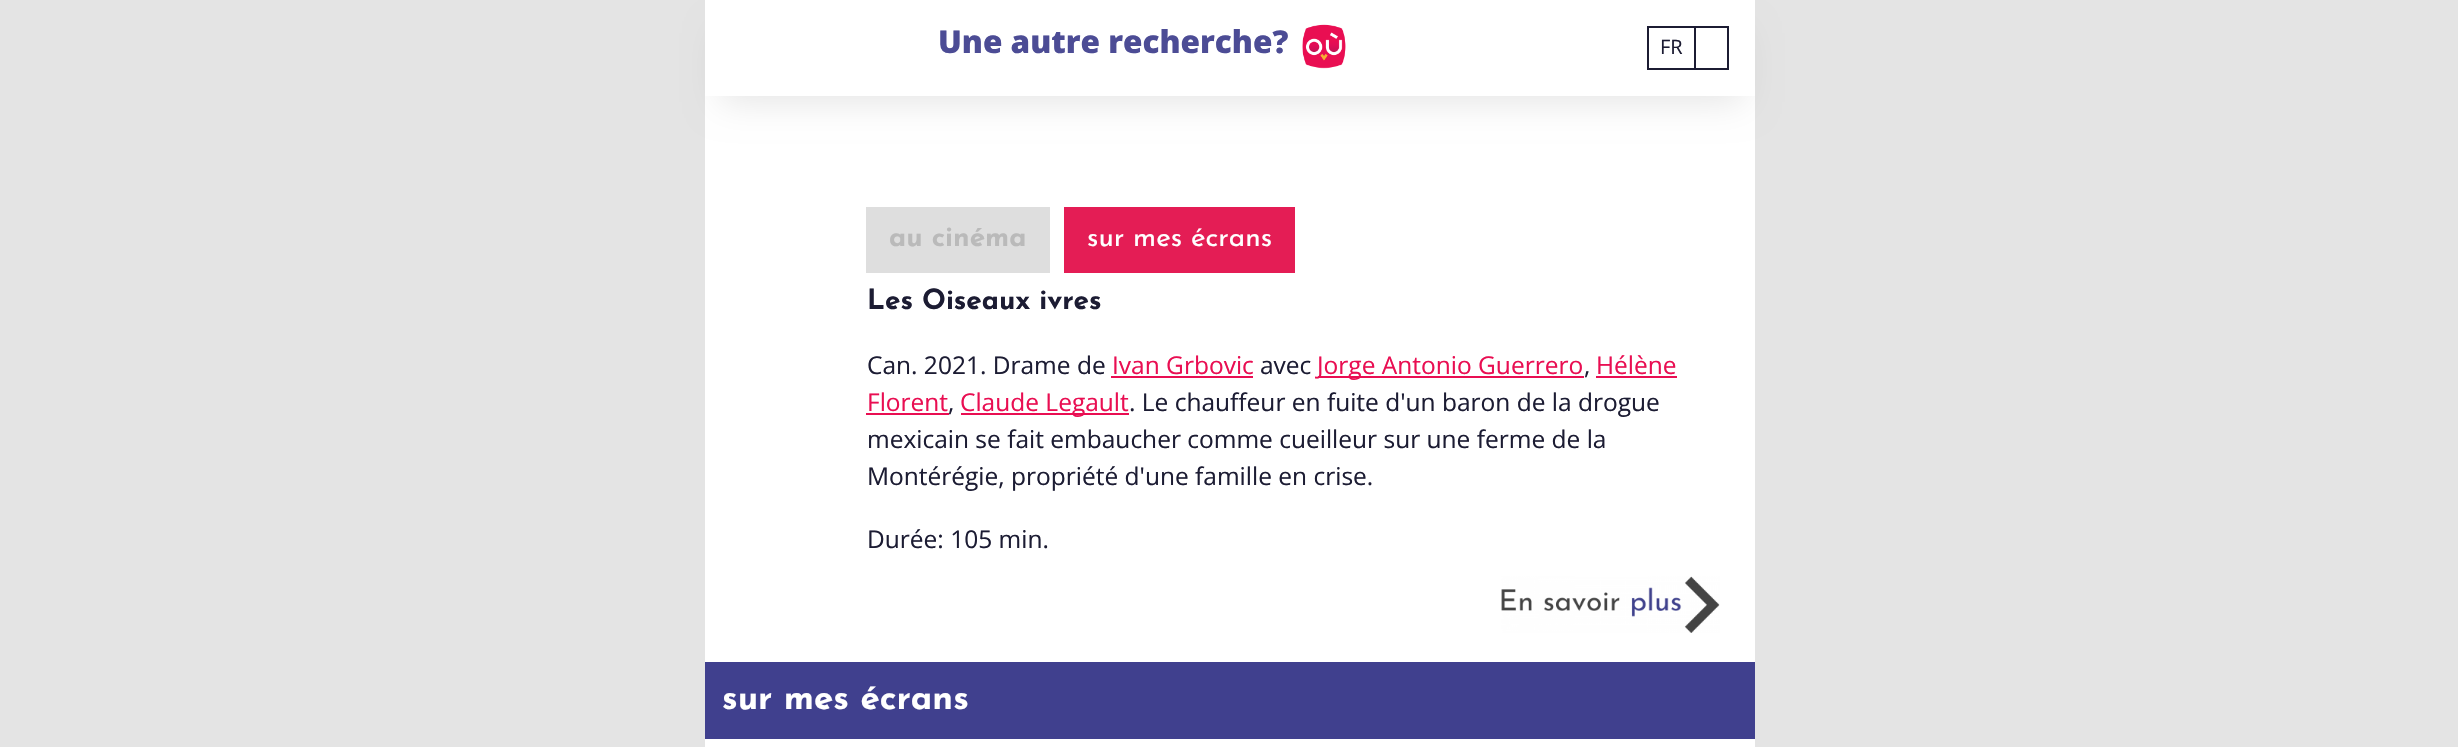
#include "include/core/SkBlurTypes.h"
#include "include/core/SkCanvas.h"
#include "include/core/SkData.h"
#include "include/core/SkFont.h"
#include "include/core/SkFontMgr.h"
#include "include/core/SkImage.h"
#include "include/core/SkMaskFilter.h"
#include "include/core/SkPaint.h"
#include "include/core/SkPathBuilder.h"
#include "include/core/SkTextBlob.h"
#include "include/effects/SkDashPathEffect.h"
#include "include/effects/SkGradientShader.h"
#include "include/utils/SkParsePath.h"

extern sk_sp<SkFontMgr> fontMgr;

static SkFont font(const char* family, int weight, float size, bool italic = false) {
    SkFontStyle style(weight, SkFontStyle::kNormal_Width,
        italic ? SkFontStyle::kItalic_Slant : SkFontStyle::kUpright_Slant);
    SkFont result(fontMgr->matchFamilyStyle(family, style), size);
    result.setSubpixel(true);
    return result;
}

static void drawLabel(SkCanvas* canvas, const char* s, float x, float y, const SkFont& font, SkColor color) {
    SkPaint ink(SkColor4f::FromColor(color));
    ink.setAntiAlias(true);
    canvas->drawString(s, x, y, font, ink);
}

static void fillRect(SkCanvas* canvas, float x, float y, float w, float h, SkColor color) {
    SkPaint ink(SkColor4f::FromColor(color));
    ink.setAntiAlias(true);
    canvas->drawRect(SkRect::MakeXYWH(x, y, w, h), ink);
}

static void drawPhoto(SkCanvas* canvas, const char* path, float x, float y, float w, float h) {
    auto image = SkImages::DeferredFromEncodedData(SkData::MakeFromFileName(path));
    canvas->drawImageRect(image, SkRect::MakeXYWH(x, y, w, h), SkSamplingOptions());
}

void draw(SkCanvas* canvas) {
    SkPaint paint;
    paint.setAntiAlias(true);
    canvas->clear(0xFFE4E4E4);
    fillRect(canvas, 705, 96, 1050, 651, 0xFFFFFFFF);
    paint.setColor(0x1A000000);
    paint.setMaskFilter(SkMaskFilter::MakeBlur(kNormal_SkBlurStyle, 17.5f));
    canvas->drawRect(SkRect::MakeXYWH(721, 33, 1022, 69), paint);
    paint.setMaskFilter(nullptr);
    fillRect(canvas, 705, 0, 1050, 96, 0xFFFFFFFF);
    SkFont font1 = font("Open Sans", 800, 31.5f);
    drawLabel(canvas, "Une autre recherche?", 938, 53, font1, 0xFF4C4C95);
    drawPhoto(canvas, "assets/img1.png", 1302, 24, 44, 45);
    paint.setStroke(true);
    paint.setStrokeWidth(2);
    paint.setColor(0xFF1C1C33);
    canvas->drawRect(SkRect::MakeXYWH(1648, 27, 80, 42), paint);
    SkFont font2 = font("Open Sans", 400, 20);
    drawLabel(canvas, "FR", 1660, 54, font2, 0xFF1C1C33);
    fillRect(canvas, 1694, 28, 2, 40, 0xFF1C1C33);
    fillRect(canvas, 866, 207, 184, 66, 0xFFDEDEDE);
    SkFont font3 = font("Josefin Sans", 700, 28);
    drawLabel(canvas, "au cinéma", 889, 246, font3, 0xFFBABABA);
    fillRect(canvas, 1064, 207, 231, 66, 0xFFE41D55);
    SkFont font4 = font("Josefin Sans", 400, 28);
    drawLabel(canvas, "sur mes écrans", 1087, 246, font4, 0xFFFFFFFF);
    drawLabel(canvas, "Les Oiseaux ivres", 867, 309, font3, 0xFF1C1C33);
    SkFont font5 = font("Open Sans", 400, 24.5f);
    drawLabel(canvas, "Can. 2021. Drame de", 867, 374, font5, 0xFF1C1C33);
    drawLabel(canvas, "Ivan Grbovic", 1112, 374, font5, 0xFFE90E52);
    fillRect(canvas, 1111, 376, 142, 2, 0xFFE90E52);
    drawLabel(canvas, "avec", 1260, 374, font5, 0xFF1C1C33);
    fillRect(canvas, 1318, 376, 266, 2, 0xFFE90E52);
    drawLabel(canvas, "Jorge Antonio Guerrero", 1317, 374, font5, 0xFFE90E52);
    drawLabel(canvas, ",", 1584, 374, font5, 0xFF1C1C33);
    drawLabel(canvas, "Hélène", 1596, 374, font5, 0xFFE90E52);
    fillRect(canvas, 1596, 376, 81, 2, 0xFFE90E52);
    drawLabel(canvas, "Florent", 867, 411, font5, 0xFFE90E52);
    fillRect(canvas, 866, 413, 83, 2, 0xFFE90E52);
    drawLabel(canvas, ",", 948, 411, font5, 0xFF1C1C33);
    fillRect(canvas, 961, 413, 168, 2, 0xFFE90E52);
    drawLabel(canvas, "Claude Legault", 960, 411, font5, 0xFFE90E52);
    drawLabel(canvas, ". Le chauffeur en fuite d'un baron de la drogue", 1129, 411, font5, 0xFF1C1C33);
    drawLabel(canvas, "mexicain se fait embaucher comme cueilleur sur une ferme de la", 867, 448, font5, 0xFF1C1C33);
    drawLabel(canvas, "Montérégie, propriété d'une famille en crise.", 867, 485, font5, 0xFF1C1C33);
    drawLabel(canvas, "Durée: 105 min.", 867, 548, font5, 0xFF1C1C33);
    drawPhoto(canvas, "assets/img2.png", 1501, 576, 219, 57);
    fillRect(canvas, 705, 662, 1050, 77, 0xFF40408E);
    SkFont font6 = font("Josefin Sans", 700, 35);
    drawLabel(canvas, "sur mes écrans", 722, 709, font6, 0xFFFFFFFF);
}
